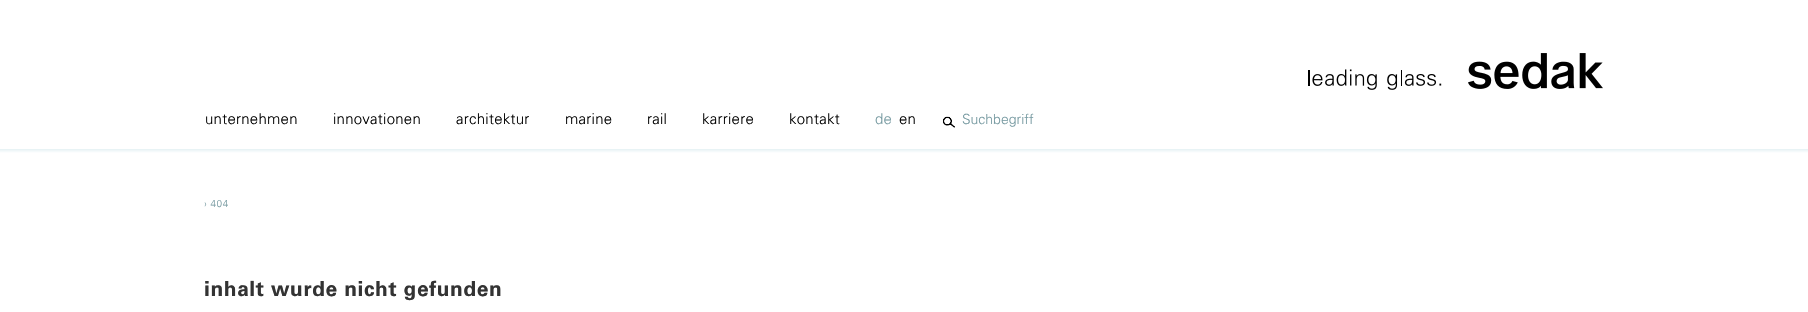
#include "include/core/SkBlurTypes.h"
#include "include/core/SkCanvas.h"
#include "include/core/SkData.h"
#include "include/core/SkFont.h"
#include "include/core/SkFontMgr.h"
#include "include/core/SkImage.h"
#include "include/core/SkMaskFilter.h"
#include "include/core/SkPaint.h"
#include "include/core/SkPathBuilder.h"
#include "include/core/SkTextBlob.h"
#include "include/effects/SkDashPathEffect.h"
#include "include/effects/SkGradientShader.h"
#include "include/utils/SkParsePath.h"

extern sk_sp<SkFontMgr> fontMgr;

static SkFont font(const char* family, int weight, float size, bool italic = false) {
    SkFontStyle style(weight, SkFontStyle::kNormal_Width,
        italic ? SkFontStyle::kItalic_Slant : SkFontStyle::kUpright_Slant);
    SkFont result(fontMgr->matchFamilyStyle(family, style), size);
    result.setSubpixel(true);
    return result;
}

static void drawLabel(SkCanvas* canvas, const char* s, float x, float y, const SkFont& font, SkColor color) {
    SkPaint ink(SkColor4f::FromColor(color));
    ink.setAntiAlias(true);
    canvas->drawString(s, x, y, font, ink);
}

static void drawTracked(SkCanvas* canvas, const char* s, float x, float y, const SkFont& font, const SkPaint& ink, float letter, float word) {
    std::vector<SkGlyphID> glyphs(font.countText(s, strlen(s), SkTextEncoding::kUTF8));
    std::vector<float> xs(glyphs.size());
    font.textToGlyphs(s, strlen(s), SkTextEncoding::kUTF8, glyphs);
    font.getXPos(glyphs, xs, x);
    float extra = 0;
    for (size_t i = 0; i < glyphs.size(); i++) {
        xs[i] += extra;
        extra += letter + word * (glyphs[i] == font.unicharToGlyph(' '));
    }
    canvas->drawTextBlob(SkTextBlob::MakeFromPosHGlyphs(glyphs, xs, y, font), 0, 0, ink);
}

static void drawPhoto(SkCanvas* canvas, const char* path, float x, float y, float w, float h) {
    auto image = SkImages::DeferredFromEncodedData(SkData::MakeFromFileName(path));
    canvas->drawImageRect(image, SkRect::MakeXYWH(x, y, w, h), SkSamplingOptions());
}

void draw(SkCanvas* canvas) {
    SkPaint paint;
    paint.setAntiAlias(true);
    canvas->clear(0xFFFFFFFF);
    drawPhoto(canvas, "assets/img1.png", 1308, 69, 134, 21);
    drawPhoto(canvas, "assets/img2.png", 1468, 53, 135, 36);
    SkFont font1 = font("Univers", 300, 15);
    paint.setColor(0xFF000000);
    drawTracked(canvas, "unternehmen", 205, 124, font1, paint, 0.25f, 0);
    drawTracked(canvas, "innovationen", 333, 124, font1, paint, 0.25f, 0);
    drawTracked(canvas, "architektur", 456, 124, font1, paint, 0.25f, 0);
    drawTracked(canvas, "marine", 565, 124, font1, paint, 0.25f, 0);
    drawTracked(canvas, "rail", 647, 124, font1, paint, 0.25f, 0);
    drawTracked(canvas, "karriere", 702, 124, font1, paint, 0.25f, 0);
    drawTracked(canvas, "kontakt", 789, 124, font1, paint, 0.25f, 0);
    paint.setColor(0xFF789BA2);
    drawTracked(canvas, "de", 875, 124, font1, paint, 0.25f, 0);
    paint.setColor(0xFF000000);
    drawTracked(canvas, "en", 899, 124, font1, paint, 0.25f, 0);
    drawPhoto(canvas, "assets/img3.png", 942, 116, 13, 12);
    SkFont font2 = font("Univers", 300, 14);
    drawLabel(canvas, "Suchbegriff", 962, 124, font2, 0xFF789BA2);
    {
        const SkColor colors[] = {0xFFE5F1F4, 0xFFFFFFFF};
        const float stops[] = {0, 1};
        const SkPoint ends[] = {{904, 149}, {904, 153}};
        paint.setShader(SkGradientShader::MakeLinear(ends, colors, stops, 2, SkTileMode::kClamp));
        paint.setAlpha(255);
    }
    canvas->drawRect(SkRect::MakeXYWH(0, 149, 1808, 4), paint);
    SkFont font3 = font("Univers", 300, 10);
    paint.setShader(nullptr);
    paint.setColor(0xFF789BA2);
    drawTracked(canvas, "› 404", 204, 207, font3, paint, 0.5f, 0);
    SkFont font4 = font("Univers", 700, 20.9f);
    paint.setColor(0xFF333333);
    drawTracked(canvas, "inhalt wurde nicht gefunden", 204, 296, font4, paint, 0.6f, 0);
}
